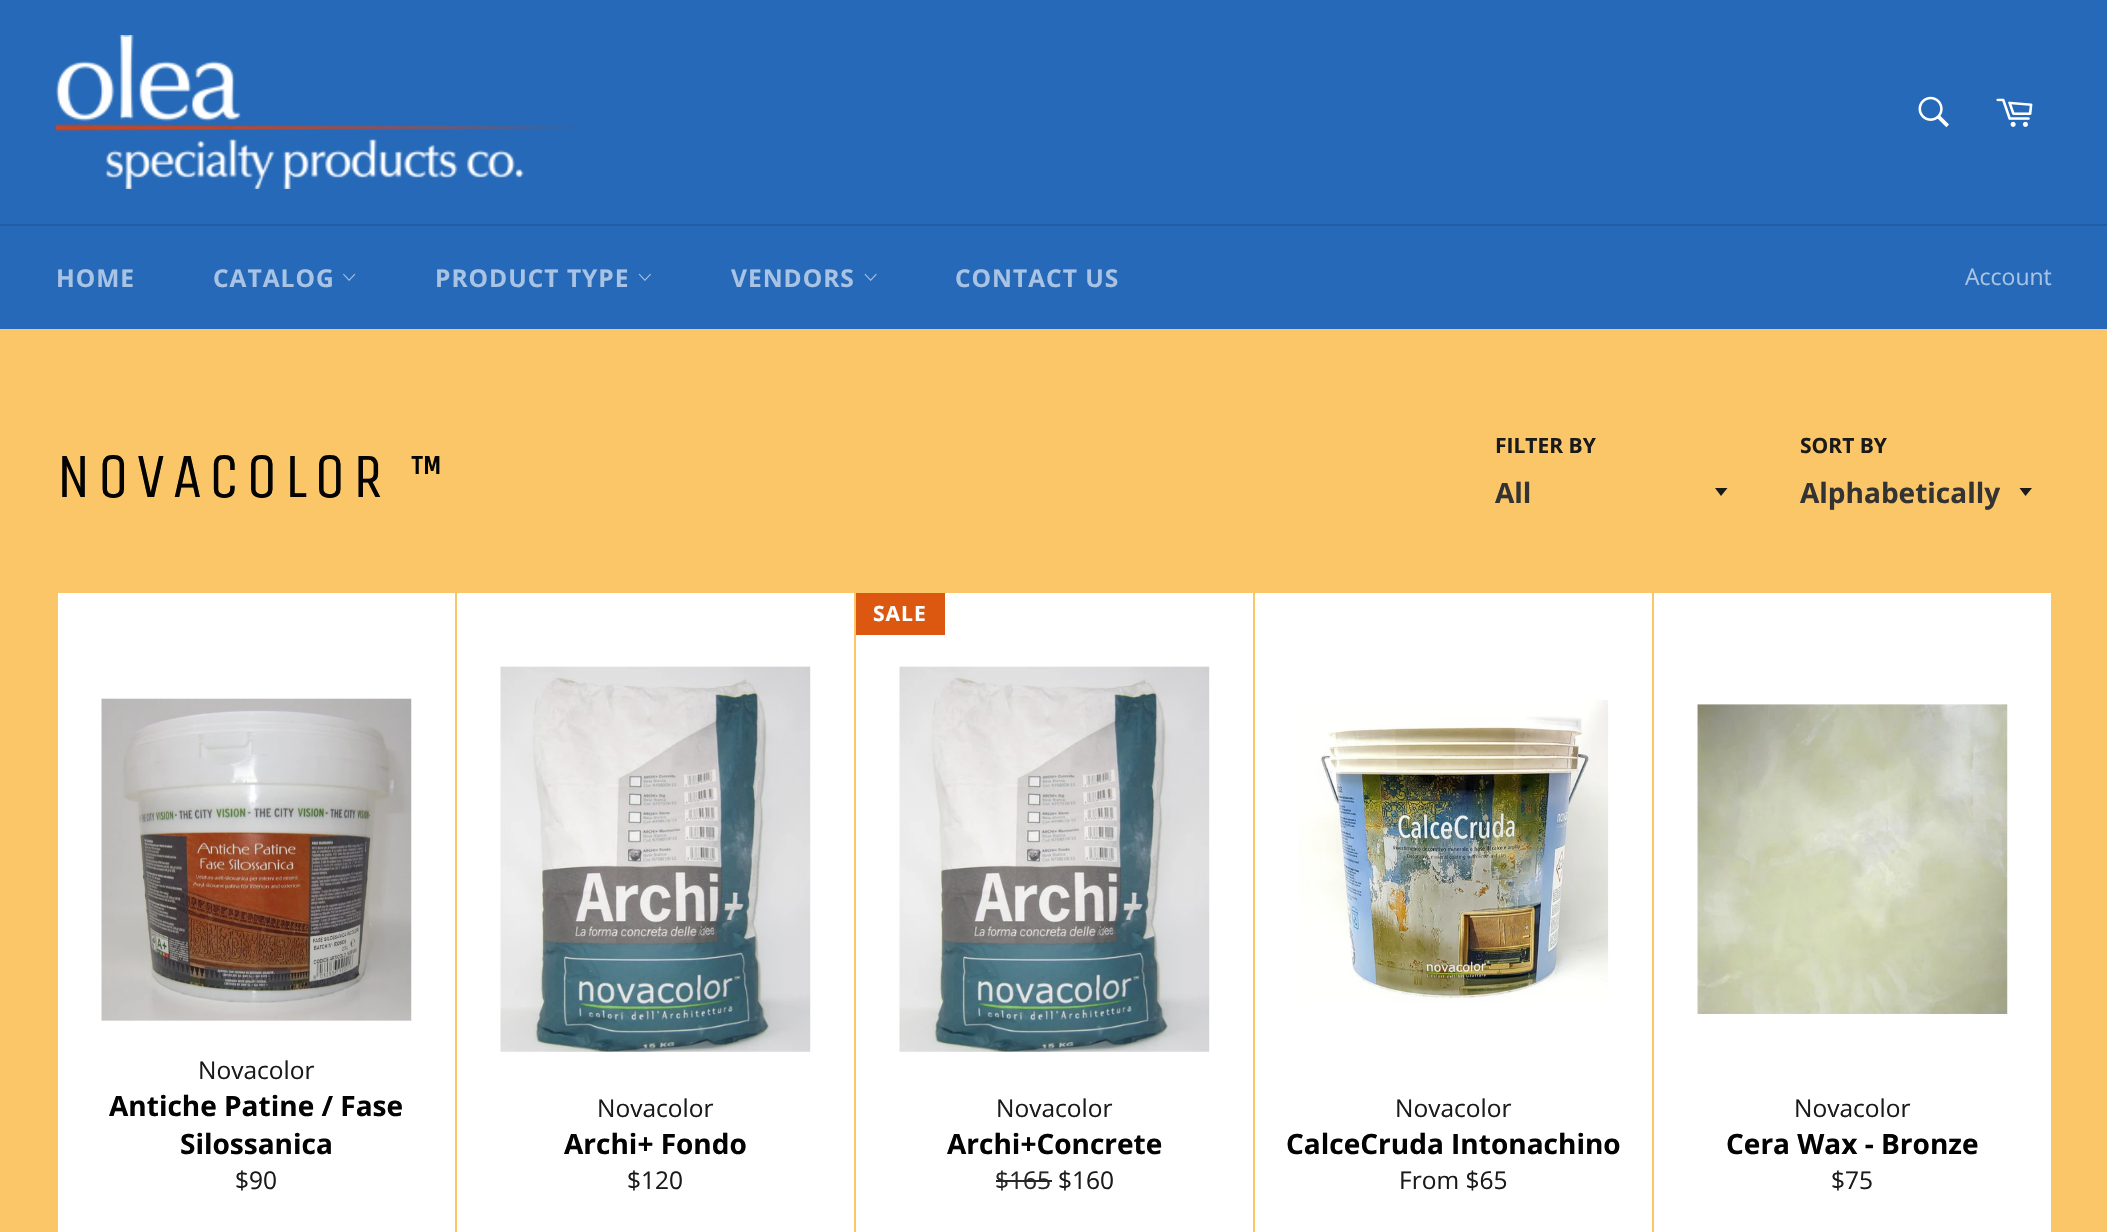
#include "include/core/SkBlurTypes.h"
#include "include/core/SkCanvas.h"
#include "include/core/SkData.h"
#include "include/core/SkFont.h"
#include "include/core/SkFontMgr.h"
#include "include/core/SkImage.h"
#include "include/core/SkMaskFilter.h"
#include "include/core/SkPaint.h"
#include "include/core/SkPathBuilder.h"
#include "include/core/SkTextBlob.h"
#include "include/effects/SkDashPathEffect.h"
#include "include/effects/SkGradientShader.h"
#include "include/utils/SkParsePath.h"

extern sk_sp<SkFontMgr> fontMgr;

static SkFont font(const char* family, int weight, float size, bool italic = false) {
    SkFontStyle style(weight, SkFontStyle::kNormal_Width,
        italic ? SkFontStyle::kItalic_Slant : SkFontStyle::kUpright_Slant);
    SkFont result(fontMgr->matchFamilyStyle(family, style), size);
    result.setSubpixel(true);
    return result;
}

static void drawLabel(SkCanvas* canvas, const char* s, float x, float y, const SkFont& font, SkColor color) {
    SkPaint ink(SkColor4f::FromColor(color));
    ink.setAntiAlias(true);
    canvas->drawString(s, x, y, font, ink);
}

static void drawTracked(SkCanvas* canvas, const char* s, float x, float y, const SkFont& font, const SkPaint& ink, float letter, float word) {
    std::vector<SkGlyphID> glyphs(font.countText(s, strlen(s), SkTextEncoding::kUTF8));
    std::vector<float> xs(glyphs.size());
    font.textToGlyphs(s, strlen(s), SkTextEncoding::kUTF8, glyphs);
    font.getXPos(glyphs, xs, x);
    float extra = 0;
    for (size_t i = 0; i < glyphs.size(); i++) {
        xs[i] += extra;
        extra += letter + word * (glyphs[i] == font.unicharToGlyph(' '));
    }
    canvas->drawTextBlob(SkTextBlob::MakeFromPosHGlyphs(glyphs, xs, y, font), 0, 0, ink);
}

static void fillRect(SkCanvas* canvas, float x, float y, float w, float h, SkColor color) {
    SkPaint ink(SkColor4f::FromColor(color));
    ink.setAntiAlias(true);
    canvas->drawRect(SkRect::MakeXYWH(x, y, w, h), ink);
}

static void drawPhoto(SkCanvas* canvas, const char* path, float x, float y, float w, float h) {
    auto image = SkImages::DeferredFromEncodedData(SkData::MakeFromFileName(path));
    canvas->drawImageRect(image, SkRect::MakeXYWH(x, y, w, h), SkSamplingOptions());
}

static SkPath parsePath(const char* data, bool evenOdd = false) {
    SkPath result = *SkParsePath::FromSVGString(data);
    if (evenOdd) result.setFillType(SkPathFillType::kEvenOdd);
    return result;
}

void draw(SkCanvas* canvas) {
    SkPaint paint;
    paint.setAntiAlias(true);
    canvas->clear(0xFFFAC668);
    fillRect(canvas, 0, 0, 2107, 224, 0xFF2569B8);
    drawPhoto(canvas, "assets/img1.png", 56, 35, 524, 154);
    drawPhoto(canvas, "assets/img2.png", 1918, 96, 31, 32);
    drawPhoto(canvas, "assets/img3.png", 1996, 98, 37, 29);
    fillRect(canvas, 0, 226, 2107, 103, 0xFF2569B8);
    fillRect(canvas, 0, 224, 2107, 2, 0xFF215DA3);
    SkFont font1 = font("Open Sans", 700, 24.5f);
    paint.setColor(0xFFA8C3E3);
    drawTracked(canvas, "HOME", 56, 287, font1, paint, 1, 0);
    drawTracked(canvas, "CATALOG", 213, 287, font1, paint, 1, 0);
    drawPhoto(canvas, "assets/img4.png", 343, 273, 13, 8);
    drawTracked(canvas, "PRODUCT TYPE", 435, 287, font1, paint, 1, 0);
    drawPhoto(canvas, "assets/img5.png", 638, 273, 13, 8);
    drawTracked(canvas, "VENDORS", 731, 287, font1, paint, 1, 0);
    drawPhoto(canvas, "assets/img6.png", 864, 273, 13, 8);
    drawTracked(canvas, "CONTACT US", 955, 287, font1, paint, 1, 0);
    SkFont font2 = font("Open Sans", 400, 23);
    drawLabel(canvas, "Account", 1965, 285, font2, 0xFFA8C3E3);
    SkFont font3 = font("Unica One", 400, 63);
    paint.setColor(0xFF030303);
    drawTracked(canvas, "NOVACOLOR ™", 56, 497, font3, paint, 6.25f, 0);
    SkFont font4 = font("Open Sans", 700, 21);
    drawLabel(canvas, "FILTER BY", 1495, 453, font4, 0xFF1A1A1A);
    paint.setColor(0xFF1A1A1A);
    canvas->drawPath(parsePath("M1715 488L1721 496L1727.5 488Z"), paint);
    SkFont font5 = font("Open Sans", 700, 28);
    drawLabel(canvas, "All", 1495, 503, font5, 0xFF333333);
    drawLabel(canvas, "SORT BY", 1800, 453, font4, 0xFF1A1A1A);
    canvas->drawPath(parsePath("M2019.5 488L2025.5 496L2032 488Z"), paint);
    drawLabel(canvas, "Alphabetically", 1800, 503, font5, 0xFF333333);
    fillRect(canvas, 58, 593, 397, 639, 0xFFFFFFFF);
    drawPhoto(canvas, "assets/img7.png", 101, 698, 311, 323);
    SkFont font6 = font("Open Sans", 400, 24.5f);
    drawLabel(canvas, "Novacolor", 198, 1079, font6, 0xFF1A1A1A);
    drawLabel(canvas, "Antiche Patine / Fase", 109, 1116, font5, 0xFF030303);
    drawLabel(canvas, "Silossanica", 180, 1154, font5, 0xFF030303);
    drawLabel(canvas, "$90", 235, 1189, font6, 0xFF1A1A1A);
    fillRect(canvas, 457, 593, 397, 639, 0xFFFFFFFF);
    drawPhoto(canvas, "assets/img8.png", 500, 666, 311, 386);
    drawLabel(canvas, "Novacolor", 597, 1117, font6, 0xFF1A1A1A);
    drawLabel(canvas, "Archi+ Fondo", 564, 1154, font5, 0xFF030303);
    drawLabel(canvas, "$120", 627, 1189, font6, 0xFF1A1A1A);
    fillRect(canvas, 856, 593, 397, 639, 0xFFFFFFFF);
    fillRect(canvas, 856, 593, 89, 42, 0xFFDC5811);
    paint.setColor(0xFFFFFFFF);
    drawTracked(canvas, "SALE", 873, 621, font4, paint, 1, 0);
    drawPhoto(canvas, "assets/img9.png", 899, 666, 311, 386);
    drawLabel(canvas, "Novacolor", 996, 1117, font6, 0xFF1A1A1A);
    drawLabel(canvas, "Archi+Concrete", 947, 1154, font5, 0xFF030303);
    drawLabel(canvas, "$165", 995, 1189, font6, 0xFF272727);
    fillRect(canvas, 996, 1180, 56, 2, 0xFF272727);
    drawLabel(canvas, "$160", 1058, 1189, font6, 0xFF1A1A1A);
    fillRect(canvas, 1255, 593, 397, 639, 0xFFFFFFFF);
    drawPhoto(canvas, "assets/img10.png", 1298, 700, 311, 302);
    drawLabel(canvas, "Novacolor", 1395, 1117, font6, 0xFF1A1A1A);
    drawLabel(canvas, "CalceCruda Intonachino", 1286, 1154, font5, 0xFF030303);
    drawLabel(canvas, "From $65", 1399, 1189, font6, 0xFF1A1A1A);
    fillRect(canvas, 1654, 593, 397, 639, 0xFFFFFFFF);
    drawPhoto(canvas, "assets/img11.png", 1697, 704, 311, 310);
    drawLabel(canvas, "Novacolor", 1794, 1117, font6, 0xFF1A1A1A);
    drawLabel(canvas, "Cera Wax - Bronze", 1726, 1154, font5, 0xFF030303);
    drawLabel(canvas, "$75", 1831, 1189, font6, 0xFF1A1A1A);
}
